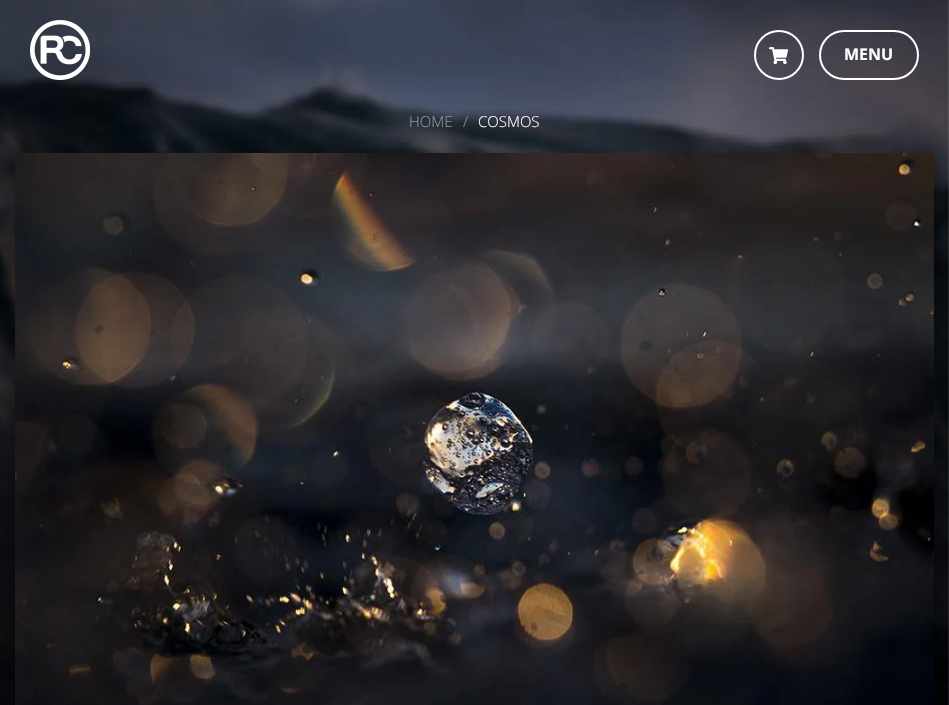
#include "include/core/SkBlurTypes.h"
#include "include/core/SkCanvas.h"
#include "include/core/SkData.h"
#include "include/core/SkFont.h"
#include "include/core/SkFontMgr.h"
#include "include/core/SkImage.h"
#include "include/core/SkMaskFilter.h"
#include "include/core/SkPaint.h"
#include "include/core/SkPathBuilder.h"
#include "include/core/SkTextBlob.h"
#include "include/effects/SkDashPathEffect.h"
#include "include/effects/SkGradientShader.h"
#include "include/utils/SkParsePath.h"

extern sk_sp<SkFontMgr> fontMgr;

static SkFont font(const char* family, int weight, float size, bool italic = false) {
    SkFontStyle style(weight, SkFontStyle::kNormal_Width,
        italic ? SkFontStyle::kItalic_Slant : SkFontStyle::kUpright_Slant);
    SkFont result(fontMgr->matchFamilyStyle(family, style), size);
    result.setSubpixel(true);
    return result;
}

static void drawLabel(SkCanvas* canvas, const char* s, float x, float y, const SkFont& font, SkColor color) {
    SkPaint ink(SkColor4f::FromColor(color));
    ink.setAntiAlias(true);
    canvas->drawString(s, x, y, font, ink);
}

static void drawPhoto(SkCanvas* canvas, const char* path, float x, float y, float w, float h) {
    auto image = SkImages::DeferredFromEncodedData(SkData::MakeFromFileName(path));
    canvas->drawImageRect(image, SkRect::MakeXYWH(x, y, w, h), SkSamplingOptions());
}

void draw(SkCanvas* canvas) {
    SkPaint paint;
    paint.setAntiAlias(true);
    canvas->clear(0xFFFFFFFF);
    drawPhoto(canvas, "assets/img1.png", 0, 0, 949, 705);
    drawPhoto(canvas, "assets/img2.png", 30, 20, 60, 60);
    paint.setStroke(true);
    paint.setStrokeWidth(2);
    paint.setColor(0xFFFFFFFF);
    canvas->drawCircle(779, 55, 24, paint);
    drawPhoto(canvas, "assets/img3.png", 769, 47, 20, 18);
    canvas->drawRoundRect(SkRect::MakeXYWH(820, 31, 98, 48), 24, 24, paint);
    SkFont font1 = font("Open Sans", 700, 16);
    drawLabel(canvas, "MENU", 844, 60, font1, 0xFFFFFFFF);
    SkFont font2 = font("Open Sans", 300, 15);
    drawLabel(canvas, "HOME", 409, 127, font2, 0xFF94989E);
    drawLabel(canvas, "/", 463, 127, font2, 0xFF94989E);
    drawLabel(canvas, "COSMOS", 478, 127, font2, 0xFFFFFFFF);
    paint.setStroke(false);
    paint.setColor(0x66000000);
    paint.setMaskFilter(SkMaskFilter::MakeBlur(kNormal_SkBlurStyle, 9));
    canvas->drawRect(SkRect::MakeXYWH(15, 156, 919, 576), paint);
    paint.setMaskFilter(nullptr);
    drawPhoto(canvas, "assets/img4.png", 15, 153, 919, 552);
}
